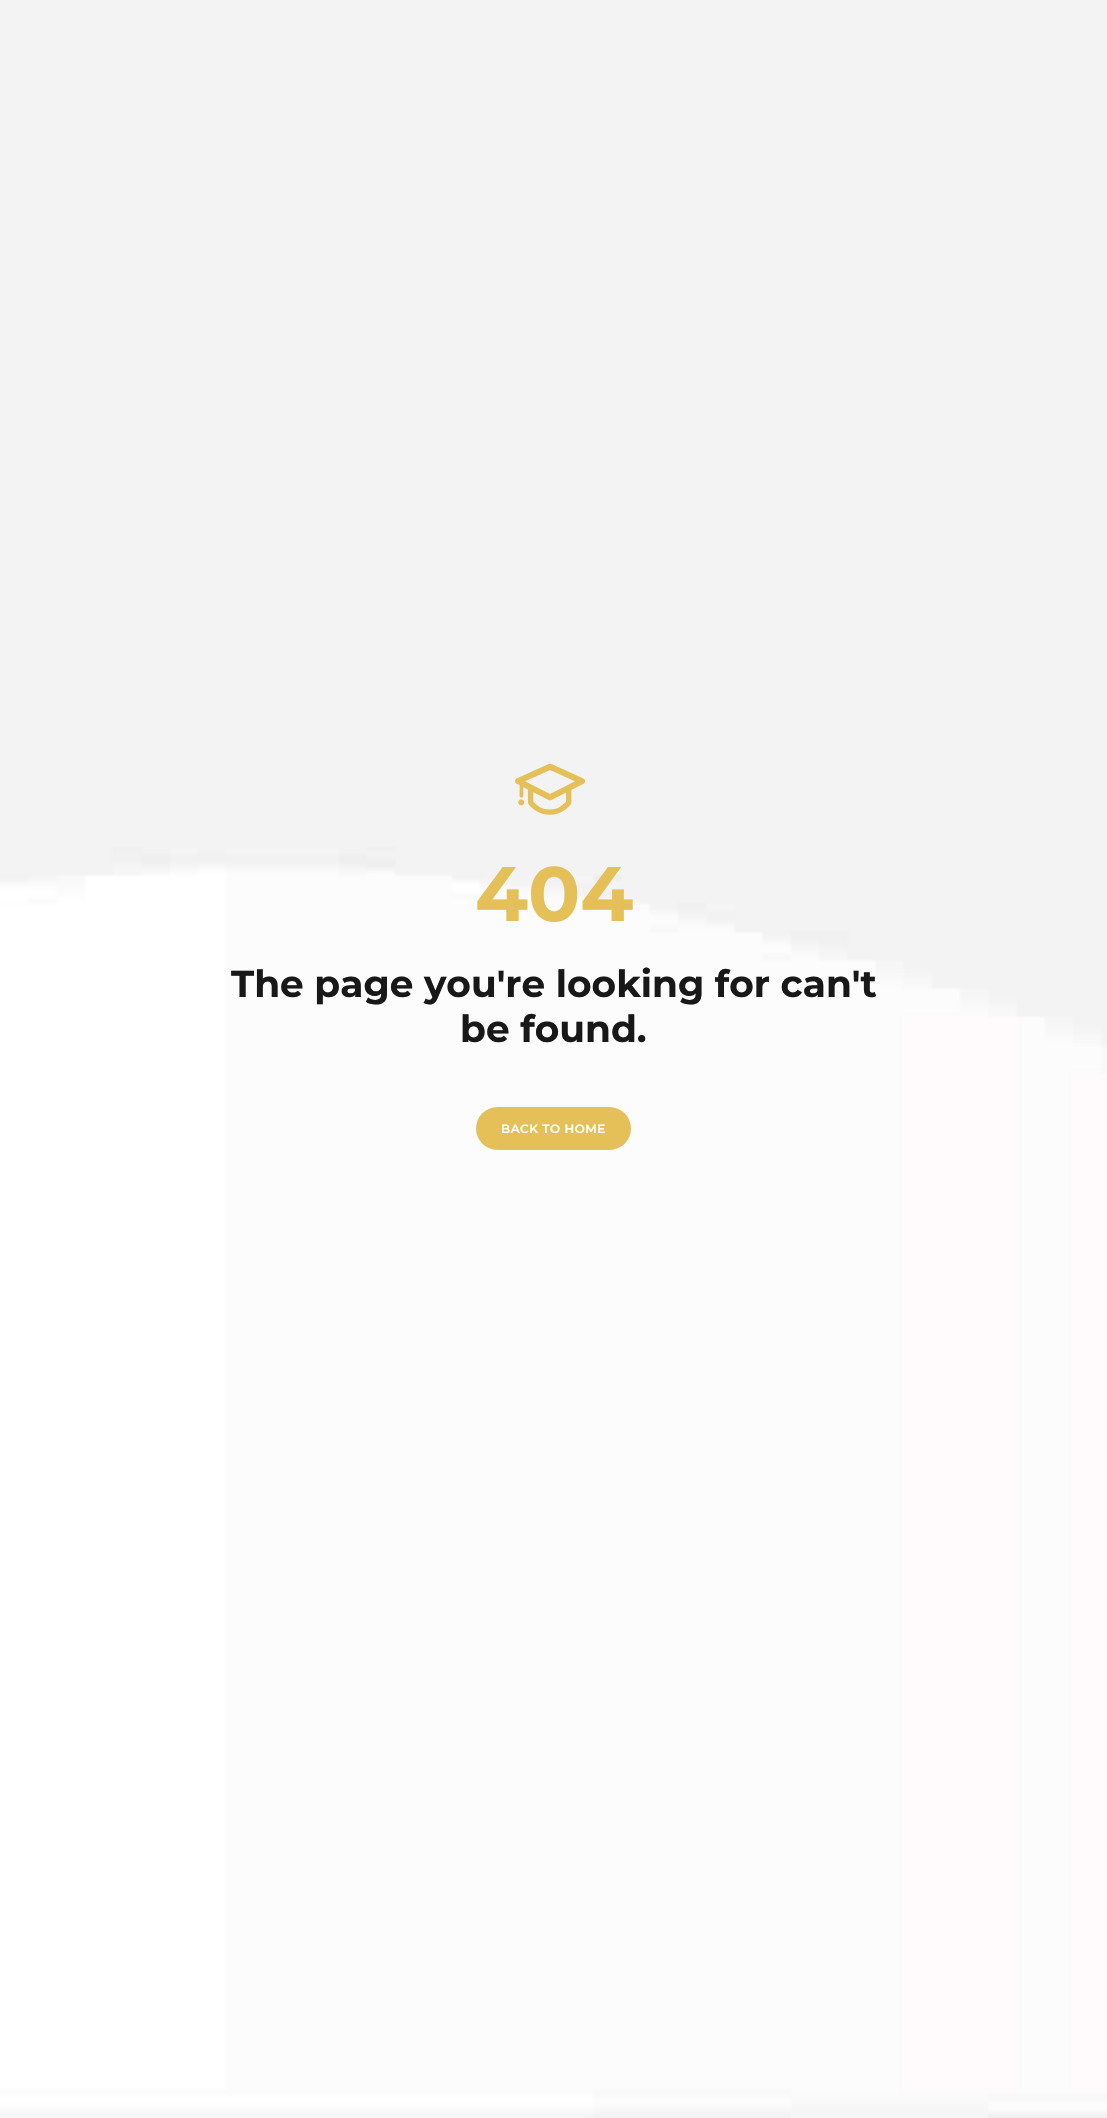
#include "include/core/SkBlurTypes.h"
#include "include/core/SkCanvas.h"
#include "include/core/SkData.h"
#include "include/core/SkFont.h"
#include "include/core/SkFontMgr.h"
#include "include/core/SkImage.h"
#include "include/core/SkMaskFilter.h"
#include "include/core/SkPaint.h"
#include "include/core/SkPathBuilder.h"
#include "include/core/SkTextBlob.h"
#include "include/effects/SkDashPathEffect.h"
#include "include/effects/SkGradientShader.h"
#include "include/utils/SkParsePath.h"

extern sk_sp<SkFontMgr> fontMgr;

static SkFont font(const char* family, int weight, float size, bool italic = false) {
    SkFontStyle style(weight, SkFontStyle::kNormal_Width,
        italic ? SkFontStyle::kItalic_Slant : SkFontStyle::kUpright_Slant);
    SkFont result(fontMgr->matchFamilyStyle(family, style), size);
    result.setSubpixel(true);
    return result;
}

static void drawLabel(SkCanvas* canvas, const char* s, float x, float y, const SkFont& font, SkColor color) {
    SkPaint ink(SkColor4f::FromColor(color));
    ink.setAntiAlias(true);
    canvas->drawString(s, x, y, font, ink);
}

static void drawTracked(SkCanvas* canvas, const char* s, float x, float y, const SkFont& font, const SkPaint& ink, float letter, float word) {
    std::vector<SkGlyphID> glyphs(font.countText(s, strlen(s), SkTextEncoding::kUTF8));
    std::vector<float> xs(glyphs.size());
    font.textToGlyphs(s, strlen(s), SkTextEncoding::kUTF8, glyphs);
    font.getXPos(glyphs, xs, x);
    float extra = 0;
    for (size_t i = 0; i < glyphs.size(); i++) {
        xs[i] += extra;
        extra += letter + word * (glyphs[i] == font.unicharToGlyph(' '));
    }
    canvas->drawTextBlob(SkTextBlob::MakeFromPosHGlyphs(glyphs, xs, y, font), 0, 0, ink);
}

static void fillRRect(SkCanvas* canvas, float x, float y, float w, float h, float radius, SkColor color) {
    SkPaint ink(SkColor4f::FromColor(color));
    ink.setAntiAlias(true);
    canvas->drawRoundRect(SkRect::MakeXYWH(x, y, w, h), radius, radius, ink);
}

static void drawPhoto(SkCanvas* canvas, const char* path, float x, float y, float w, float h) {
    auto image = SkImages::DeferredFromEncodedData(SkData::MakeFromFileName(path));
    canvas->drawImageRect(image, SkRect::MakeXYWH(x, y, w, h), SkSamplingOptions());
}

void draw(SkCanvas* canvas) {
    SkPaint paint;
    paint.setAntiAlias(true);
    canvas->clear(0xFFFFFFFF);
    drawPhoto(canvas, "assets/img1.png", 0, 0, 1107, 2118);
    drawPhoto(canvas, "assets/img2.png", 515, 763, 71, 52);
    SkFont font1 = font("Montserrat", 700, 77);
    drawLabel(canvas, "404", 475, 921, font1, 0xFFE5C059);
    SkFont font2 = font("Montserrat", 700, 37.5f);
    drawLabel(canvas, "The page you're looking for can't", 231, 997, font2, 0xFF181818);
    drawLabel(canvas, "be found.", 460, 1042, font2, 0xFF181818);
    fillRRect(canvas, 476, 1107, 155, 43, 21.5f, 0xFFE5C059);
    SkFont font3 = font("Montserrat", 600, 12);
    paint.setColor(0xFFFFFFFF);
    drawTracked(canvas, "BACK TO HOME", 501, 1133, font3, paint, 0.5f, 0);
}
